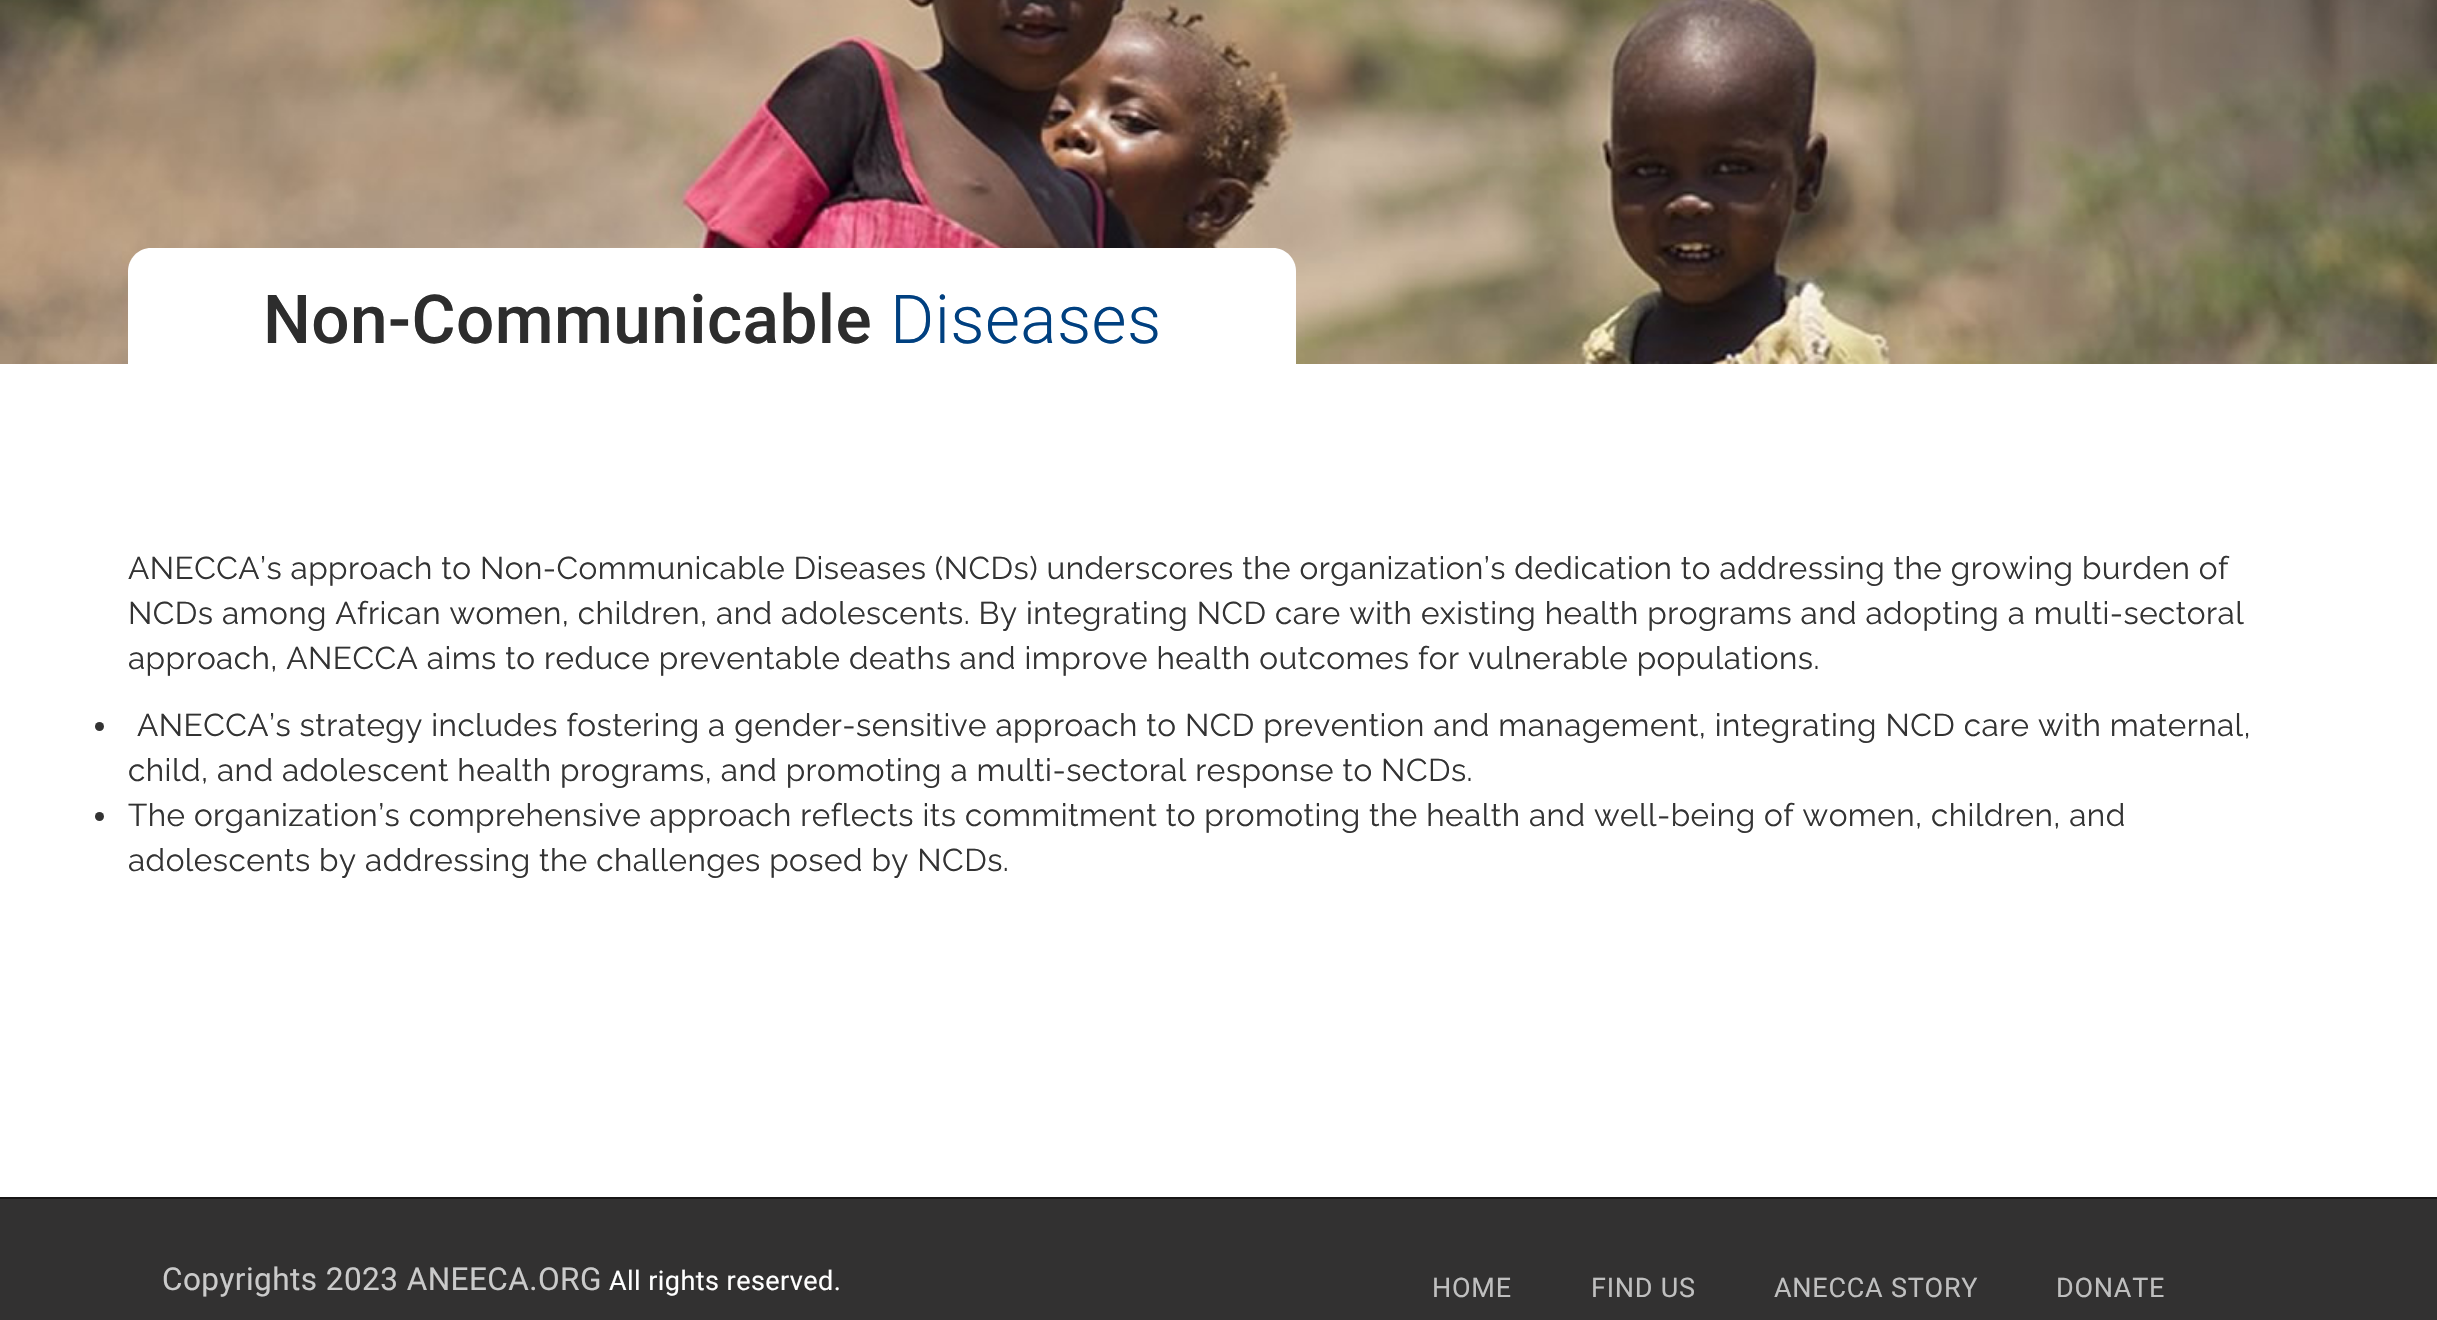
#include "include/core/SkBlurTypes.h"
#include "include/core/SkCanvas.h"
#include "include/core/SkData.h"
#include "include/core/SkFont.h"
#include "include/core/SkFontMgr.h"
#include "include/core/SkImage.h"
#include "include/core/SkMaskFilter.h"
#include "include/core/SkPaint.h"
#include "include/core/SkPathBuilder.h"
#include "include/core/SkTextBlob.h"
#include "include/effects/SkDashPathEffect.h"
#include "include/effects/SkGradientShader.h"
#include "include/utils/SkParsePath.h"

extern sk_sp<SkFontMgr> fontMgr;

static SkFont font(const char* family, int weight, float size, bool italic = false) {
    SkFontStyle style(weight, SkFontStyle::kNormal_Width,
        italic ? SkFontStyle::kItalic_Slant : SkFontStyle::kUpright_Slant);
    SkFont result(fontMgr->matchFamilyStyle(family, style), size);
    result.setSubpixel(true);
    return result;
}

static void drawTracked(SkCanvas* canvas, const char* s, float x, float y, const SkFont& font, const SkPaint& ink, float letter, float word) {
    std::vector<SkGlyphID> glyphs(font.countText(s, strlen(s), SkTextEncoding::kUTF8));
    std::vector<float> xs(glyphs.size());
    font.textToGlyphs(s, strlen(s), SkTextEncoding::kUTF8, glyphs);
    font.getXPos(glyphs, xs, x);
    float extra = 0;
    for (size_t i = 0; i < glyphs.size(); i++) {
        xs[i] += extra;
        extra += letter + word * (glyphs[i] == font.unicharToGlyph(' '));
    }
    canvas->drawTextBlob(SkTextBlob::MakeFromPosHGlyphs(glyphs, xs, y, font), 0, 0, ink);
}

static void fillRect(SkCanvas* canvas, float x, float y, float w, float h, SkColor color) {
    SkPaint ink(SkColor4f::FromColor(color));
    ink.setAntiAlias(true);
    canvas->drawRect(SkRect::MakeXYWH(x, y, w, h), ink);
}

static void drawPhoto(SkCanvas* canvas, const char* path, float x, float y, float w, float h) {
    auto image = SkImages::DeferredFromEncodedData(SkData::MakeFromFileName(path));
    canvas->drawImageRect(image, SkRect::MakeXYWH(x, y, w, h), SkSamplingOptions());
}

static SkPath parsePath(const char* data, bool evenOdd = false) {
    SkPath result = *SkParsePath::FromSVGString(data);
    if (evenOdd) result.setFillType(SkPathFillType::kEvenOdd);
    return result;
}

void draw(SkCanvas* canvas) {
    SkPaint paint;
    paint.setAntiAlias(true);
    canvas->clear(0xFFFFFFFF);
    drawPhoto(canvas, "assets/img1.png", 0, 0, 2437, 364);
    paint.setColor(0xFFFFFFFF);
    canvas->drawPath(parsePath("M151 248H1273C1285.5 248 1296 258.5 1296 271V389H128V271C128 258.5 138.5 248 151 248Z"), paint);
    SkFont font1 = font("Roboto", 500, 67.5f);
    paint.setColor(0xFF2D2D2D);
    drawTracked(canvas, "Non-Communicable", 263, 343, font1, paint, 0.45f, 0);
    SkFont font2 = font("Roboto", 300, 67.5f);
    paint.setColor(0xFF004080);
    drawTracked(canvas, "Diseases", 890, 343, font2, paint, 0.45f, 0);
    SkFont font3 = font("Raleway", 400, 31.5f);
    paint.setColor(0xFF333333);
    drawTracked(canvas, "ANECCA’s approach to Non-Communicable Diseases (NCDs) underscores the organization’s dedication to addressing the growing burden of", 128, 579, font3, paint, 0.45f, 0);
    drawTracked(canvas, "NCDs among African women, children, and adolescents. By integrating NCD care with existing health programs and adopting a multi-sectoral", 128, 624, font3, paint, 0.45f, 0);
    drawTracked(canvas, "approach, ANECCA aims to reduce preventable deaths and improve health outcomes for vulnerable populations.", 128, 669, font3, paint, 0.45f, 0);
    canvas->drawCircle(99.5f, 726.5f, 4.5f, paint);
    drawTracked(canvas, "ANECCA’s strategy includes fostering a gender-sensitive approach to NCD prevention and management, integrating NCD care with maternal,", 137, 736, font3, paint, 0.45f, 0);
    drawTracked(canvas, "child, and adolescent health programs, and promoting a multi-sectoral response to NCDs.", 128, 781, font3, paint, 0.45f, 0);
    canvas->drawCircle(99.5f, 816.5f, 4.5f, paint);
    drawTracked(canvas, "The organization’s comprehensive approach reflects its commitment to promoting the health and well-being of women, children, and", 128, 826, font3, paint, 0.45f, 0);
    drawTracked(canvas, "adolescents by addressing the challenges posed by NCDs.", 128, 871, font3, paint, 0.45f, 0);
    fillRect(canvas, 0, 1199, 2437, 121, 0xFF323131);
    fillRect(canvas, 0, 1197, 2437, 2, 0xFF171616);
    SkFont font4 = font("Roboto", 400, 31.5f);
    paint.setColor(0xFFCACACA);
    drawTracked(canvas, "Copyrights 2023 ANEECA.ORG", 162, 1290, font4, paint, 0.45f, 0);
    SkFont font5 = font("Roboto", 400, 27);
    paint.setColor(0xFFFFFFFF);
    drawTracked(canvas, "All rights reserved.", 609, 1290, font5, paint, 0.45f, 0);
    paint.setColor(0xFFBFBFBF);
    drawTracked(canvas, "HOME", 1432, 1297, font5, paint, 0.75f, 0);
    drawTracked(canvas, "FIND US", 1591, 1297, font5, paint, 0.75f, 0);
    drawTracked(canvas, "ANECCA STORY", 1774, 1297, font5, paint, 0.75f, 0);
    drawTracked(canvas, "DONATE", 2056, 1297, font5, paint, 0.75f, 0);
}
